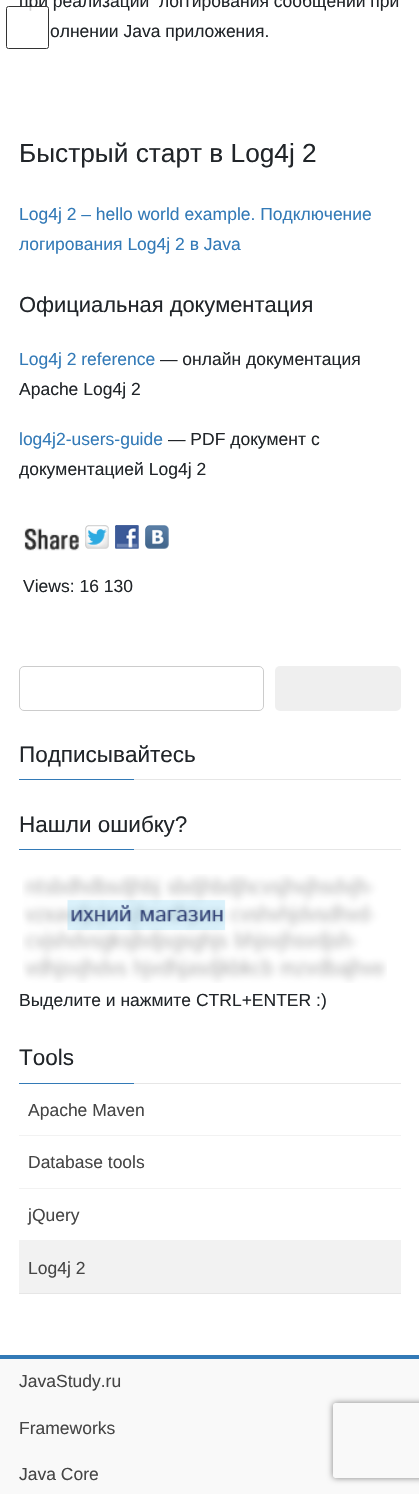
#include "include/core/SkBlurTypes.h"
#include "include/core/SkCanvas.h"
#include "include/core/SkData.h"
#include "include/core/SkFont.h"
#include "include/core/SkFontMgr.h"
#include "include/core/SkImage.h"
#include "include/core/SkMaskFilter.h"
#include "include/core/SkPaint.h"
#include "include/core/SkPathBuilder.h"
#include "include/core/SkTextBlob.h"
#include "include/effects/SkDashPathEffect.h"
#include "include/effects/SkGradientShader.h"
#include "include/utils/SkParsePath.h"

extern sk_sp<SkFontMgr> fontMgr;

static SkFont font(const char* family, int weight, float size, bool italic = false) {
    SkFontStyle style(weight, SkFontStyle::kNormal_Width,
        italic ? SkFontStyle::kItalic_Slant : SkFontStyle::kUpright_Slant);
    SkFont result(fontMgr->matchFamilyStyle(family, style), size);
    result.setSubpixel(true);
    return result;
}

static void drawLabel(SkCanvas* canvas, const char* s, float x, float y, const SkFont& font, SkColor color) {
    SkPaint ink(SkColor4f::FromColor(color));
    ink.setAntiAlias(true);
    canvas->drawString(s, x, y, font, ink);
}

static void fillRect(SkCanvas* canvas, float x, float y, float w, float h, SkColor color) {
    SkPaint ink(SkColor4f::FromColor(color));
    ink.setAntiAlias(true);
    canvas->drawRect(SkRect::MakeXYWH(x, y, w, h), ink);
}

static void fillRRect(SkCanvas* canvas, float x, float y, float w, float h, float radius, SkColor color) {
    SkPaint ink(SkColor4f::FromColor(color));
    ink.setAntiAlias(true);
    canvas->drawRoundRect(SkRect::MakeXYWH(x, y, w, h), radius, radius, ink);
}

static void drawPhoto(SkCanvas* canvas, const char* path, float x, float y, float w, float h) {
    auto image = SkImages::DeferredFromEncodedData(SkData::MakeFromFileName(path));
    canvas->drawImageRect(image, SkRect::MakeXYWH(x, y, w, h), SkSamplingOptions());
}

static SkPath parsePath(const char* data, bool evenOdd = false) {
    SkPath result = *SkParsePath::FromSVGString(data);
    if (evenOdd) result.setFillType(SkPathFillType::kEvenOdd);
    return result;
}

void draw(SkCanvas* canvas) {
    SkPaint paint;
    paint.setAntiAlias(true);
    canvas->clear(0xFFFFFFFF);
    SkFont font1 = font("Liberation Sans", 400, 17.5f);
    drawLabel(canvas, "при реализации  логгирования сообщений при", 19, 7, font1, 0xFF212529);
    drawLabel(canvas, "олнении Java приложения.", 50, 37, font1, 0xFF212529);
    SkFont font2 = font("Liberation Sans", 400, 26.25f);
    drawLabel(canvas, "Быстрый старт в Log4j 2", 19, 162, font2, 0xFF212529);
    drawLabel(canvas, "Log4j 2 – hello world example. Подключение", 19, 220, font1, 0xFF337AB7);
    drawLabel(canvas, "логирования Log4j 2 в Java", 19, 250, font1, 0xFF337AB7);
    SkFont font3 = font("Liberation Sans", 400, 21.9f);
    drawLabel(canvas, "Официальная документация", 19, 312, font3, 0xFF212529);
    drawLabel(canvas, "Log4j 2 reference", 19, 365, font1, 0xFF337AB7);
    drawLabel(canvas, "— онлайн документация", 160, 365, font1, 0xFF212529);
    drawLabel(canvas, "Apache Log4j 2", 19, 395, font1, 0xFF212529);
    drawLabel(canvas, "log4j2-users-guide", 19, 445, font1, 0xFF337AB7);
    drawLabel(canvas, "— PDF документ с", 168, 445, font1, 0xFF212529);
    drawLabel(canvas, "документацией Log4j 2", 19, 475, font1, 0xFF212529);
    drawPhoto(canvas, "assets/img1.png", 24, 528, 56, 23);
    drawPhoto(canvas, "assets/img2.png", 85, 525, 24, 24);
    drawPhoto(canvas, "assets/img3.png", 115, 525, 24, 24);
    drawPhoto(canvas, "assets/img4.png", 145, 525, 24, 24);
    drawLabel(canvas, "Views: 16 130", 23, 592, font1, 0xFF212529);
    paint.setStroke(true);
    paint.setStrokeWidth(1);
    paint.setColor(0xFFCCCCCC);
    canvas->drawRoundRect(SkRect::MakeXYWH(19.5f, 666.5f, 244, 44), 4.5f, 4.5f, paint);
    fillRRect(canvas, 275, 666, 126, 45, 5, 0xFFEFEFEF);
    fillRect(canvas, 134, 779, 267, 1, 0xFFE6E6E6);
    SkFont font4 = font("Liberation Sans", 400, 22.5f);
    drawLabel(canvas, "Подписывайтесь", 19, 762, font4, 0xFF212529);
    fillRect(canvas, 19, 779, 115, 1, 0xFF337AB7);
    fillRect(canvas, 134, 849, 267, 1, 0xFFE6E6E6);
    drawLabel(canvas, "Нашли ошибку?", 19, 832, font4, 0xFF212529);
    fillRect(canvas, 19, 849, 115, 1, 0xFF337AB7);
    drawPhoto(canvas, "assets/img5.png", 22, 874, 365, 109);
    drawLabel(canvas, "Выделите и нажмите CTRL+ENTER :)", 19, 1006, font1, 0xFF212529);
    fillRect(canvas, 134, 1083, 267, 1, 0xFFE6E6E6);
    drawLabel(canvas, "Tools", 19, 1065, font4, 0xFF212529);
    fillRect(canvas, 19, 1083, 115, 1, 0xFF337AB7);
    fillRect(canvas, 19, 1135, 382, 1, 0xFFF2F2F2);
    drawLabel(canvas, "Apache Maven", 28, 1116, font1, 0xFF464646);
    fillRect(canvas, 19, 1188, 382, 1, 0xFFF2F2F2);
    drawLabel(canvas, "Database tools", 28, 1168, font1, 0xFF464646);
    fillRect(canvas, 19, 1240, 382, 53, 0xFFF2F2F2);
    drawLabel(canvas, "jQuery", 28, 1221, font1, 0xFF464646);
    fillRect(canvas, 19, 1293, 382, 1, 0xFFE6E6E6);
    drawLabel(canvas, "Log4j 2", 28, 1274, font1, 0xFF464646);
    paint.setStroke(false);
    paint.setColor(0xCCFFFFFF);
    canvas->drawRoundRect(SkRect::MakeXYWH(6.5f, 6.5f, 42, 42), 2, 2, paint);
    paint.setStroke(true);
    paint.setColor(0xFF333333);
    canvas->drawRoundRect(SkRect::MakeXYWH(6.5f, 6.5f, 42, 42), 2, 2, paint);
    fillRect(canvas, 0, 1359, 419, 135, 0xFFF9F9F9);
    fillRect(canvas, 0, 1355, 419, 4, 0xFF337AB7);
    drawLabel(canvas, "JavaStudy.ru", 19, 1387, font1, 0xFF464646);
    drawLabel(canvas, "Frameworks", 19, 1434, font1, 0xFF464646);
    drawLabel(canvas, "Java Core", 19, 1480, font1, 0xFF464646);
    canvas->save();
    canvas->clipPath(parsePath("M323 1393H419V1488H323ZM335.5 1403H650.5C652 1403 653 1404 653 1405.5V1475.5C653 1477 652 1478 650.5 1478H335.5C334 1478 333 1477 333 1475.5V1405.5C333 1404 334 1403 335.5 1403Z", true), true);
    paint.setStroke(false);
    paint.setColor(0xFF808080);
    paint.setMaskFilter(SkMaskFilter::MakeBlur(kNormal_SkBlurStyle, 3));
    canvas->drawRoundRect(SkRect::MakeXYWH(333, 1403, 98, 75), 2.5f, 2.5f, paint);
    paint.setMaskFilter(nullptr);
    canvas->restore();
}
